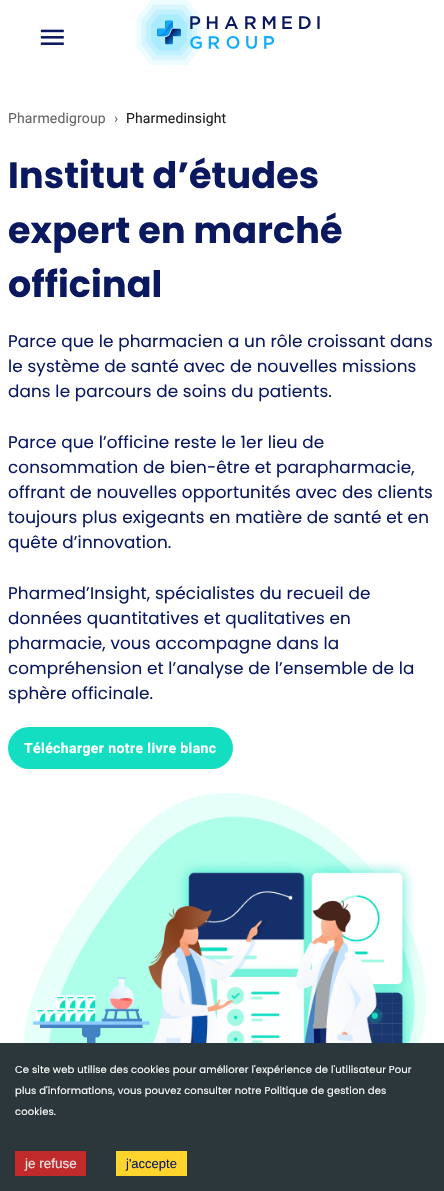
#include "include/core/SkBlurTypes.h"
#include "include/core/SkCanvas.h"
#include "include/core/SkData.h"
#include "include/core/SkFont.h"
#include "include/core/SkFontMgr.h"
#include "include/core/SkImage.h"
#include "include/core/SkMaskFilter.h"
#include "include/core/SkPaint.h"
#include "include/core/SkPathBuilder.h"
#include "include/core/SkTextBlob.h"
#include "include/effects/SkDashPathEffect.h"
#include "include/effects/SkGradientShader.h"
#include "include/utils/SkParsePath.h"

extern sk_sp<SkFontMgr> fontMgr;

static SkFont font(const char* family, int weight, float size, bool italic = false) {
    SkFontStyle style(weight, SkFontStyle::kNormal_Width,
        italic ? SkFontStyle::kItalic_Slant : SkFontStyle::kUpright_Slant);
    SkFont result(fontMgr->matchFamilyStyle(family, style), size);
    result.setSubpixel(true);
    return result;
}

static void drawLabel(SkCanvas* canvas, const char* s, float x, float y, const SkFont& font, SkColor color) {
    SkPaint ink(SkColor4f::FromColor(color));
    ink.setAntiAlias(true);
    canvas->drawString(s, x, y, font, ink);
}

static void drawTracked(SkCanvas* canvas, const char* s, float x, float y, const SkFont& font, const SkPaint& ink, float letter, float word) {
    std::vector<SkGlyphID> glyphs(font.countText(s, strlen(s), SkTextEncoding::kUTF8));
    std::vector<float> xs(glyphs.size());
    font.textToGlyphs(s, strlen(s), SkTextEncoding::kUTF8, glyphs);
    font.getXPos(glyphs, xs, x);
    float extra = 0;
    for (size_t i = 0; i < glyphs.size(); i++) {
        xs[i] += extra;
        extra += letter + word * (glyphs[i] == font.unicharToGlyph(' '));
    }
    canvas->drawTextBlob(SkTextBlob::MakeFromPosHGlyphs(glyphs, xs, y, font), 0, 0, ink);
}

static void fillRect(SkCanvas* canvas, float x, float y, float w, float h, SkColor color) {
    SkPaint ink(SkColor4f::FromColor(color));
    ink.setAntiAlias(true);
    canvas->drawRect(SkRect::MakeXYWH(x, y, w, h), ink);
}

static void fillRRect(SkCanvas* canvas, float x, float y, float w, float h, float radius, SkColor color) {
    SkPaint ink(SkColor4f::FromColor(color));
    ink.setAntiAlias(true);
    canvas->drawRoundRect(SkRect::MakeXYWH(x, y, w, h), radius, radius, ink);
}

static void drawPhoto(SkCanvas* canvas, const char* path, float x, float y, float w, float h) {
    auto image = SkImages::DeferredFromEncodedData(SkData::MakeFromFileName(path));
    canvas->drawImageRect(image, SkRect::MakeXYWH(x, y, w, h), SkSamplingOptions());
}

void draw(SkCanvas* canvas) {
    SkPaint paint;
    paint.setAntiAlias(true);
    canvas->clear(0xFFFFFFFF);
    drawPhoto(canvas, "assets/img1.png", 40, 29, 24, 16);
    drawPhoto(canvas, "assets/img2.png", 136, 0, 184, 65);
    SkFont font1 = font("Roboto", 400, 14);
    paint.setColor(0xFF666666);
    drawTracked(canvas, "Pharmedigroup", 8, 123, font1, paint, 0.13f, 0);
    drawTracked(canvas, "›", 114, 123, font1, paint, 0.13f, 0);
    paint.setColor(0xFF212121);
    drawTracked(canvas, "Pharmedinsight", 126, 123, font1, paint, 0.13f, 0);
    SkFont font2 = font("Poppins", 700, 36.5f);
    paint.setColor(0xFF0A1860);
    drawTracked(canvas, "Institut d’études", 8, 188, font2, paint, 0.13f, 0);
    drawTracked(canvas, "expert en marché", 8, 243, font2, paint, 0.13f, 0);
    drawTracked(canvas, "officinal", 8, 297, font2, paint, 0.13f, 0);
    SkFont font3 = font("Poppins", 400, 16.8f);
    drawTracked(canvas, "Parce que le pharmacien a un rôle croissant dans", 8, 347, font3, paint, 0.13f, 0);
    drawTracked(canvas, "le système de santé avec de nouvelles missions", 8, 372, font3, paint, 0.13f, 0);
    drawTracked(canvas, "dans le parcours de soins du patients.", 8, 397, font3, paint, 0.13f, 0);
    drawTracked(canvas, "Parce que l’officine reste le 1er lieu de", 8, 448, font3, paint, 0.13f, 0);
    drawTracked(canvas, "consommation de bien-être et parapharmacie,", 8, 473, font3, paint, 0.13f, 0);
    drawTracked(canvas, "offrant de nouvelles opportunités avec des clients", 8, 498, font3, paint, 0.13f, 0);
    drawTracked(canvas, "toujours plus exigeants en matière de santé et en", 8, 523, font3, paint, 0.13f, 0);
    drawTracked(canvas, "quête d’innovation.", 8, 548, font3, paint, 0.13f, 0);
    drawTracked(canvas, "Pharmed’Insight, spécialistes du recueil de", 8, 599, font3, paint, 0.13f, 0);
    drawTracked(canvas, "données quantitatives et qualitatives en", 8, 624, font3, paint, 0.13f, 0);
    drawTracked(canvas, "pharmacie, vous accompagne dans la", 8, 649, font3, paint, 0.13f, 0);
    drawTracked(canvas, "compréhension et l’analyse de l’ensemble de la", 8, 674, font3, paint, 0.13f, 0);
    drawTracked(canvas, "sphère officinale.", 8, 699, font3, paint, 0.13f, 0);
    fillRRect(canvas, 8, 727, 225, 42, 21, 0xFF14DEC1);
    SkFont font4 = font("Roboto", 700, 14);
    paint.setColor(0xFFFFFFFF);
    drawTracked(canvas, "Télécharger notre livre blanc", 24, 753, font4, paint, 0.4f, 0);
    drawPhoto(canvas, "assets/img3.png", 23, 793, 403, 250);
    fillRect(canvas, 0, 1043, 444, 148, 0xFF2B373B);
    SkFont font5 = font("Poppins", 400, 10);
    drawTracked(canvas, "Ce site web utilise des cookies pour améliorer l'expérience de l'utilisateur Pour", 15, 1073, font5, paint, 0.13f, 0);
    drawTracked(canvas, "plus d'informations, vous pouvez consulter notre Politique de gestion des", 15, 1094, font5, paint, 0.13f, 0);
    drawTracked(canvas, "cookies.", 15, 1115, font5, paint, 0.13f, 0);
    fillRect(canvas, 15, 1151, 71, 25, 0xFFC12A2A);
    SkFont font6 = font("Liberation Sans", 400, 13.5f);
    drawLabel(canvas, "je refuse", 25, 1168, font6, 0xFFE5E5E5);
    fillRect(canvas, 116, 1151, 71, 25, 0xFFFFD42D);
    SkFont font7 = font("Liberation Sans", 400, 13);
    drawLabel(canvas, "j'accepte", 126, 1168, font7, 0xFF0A1860);
}
